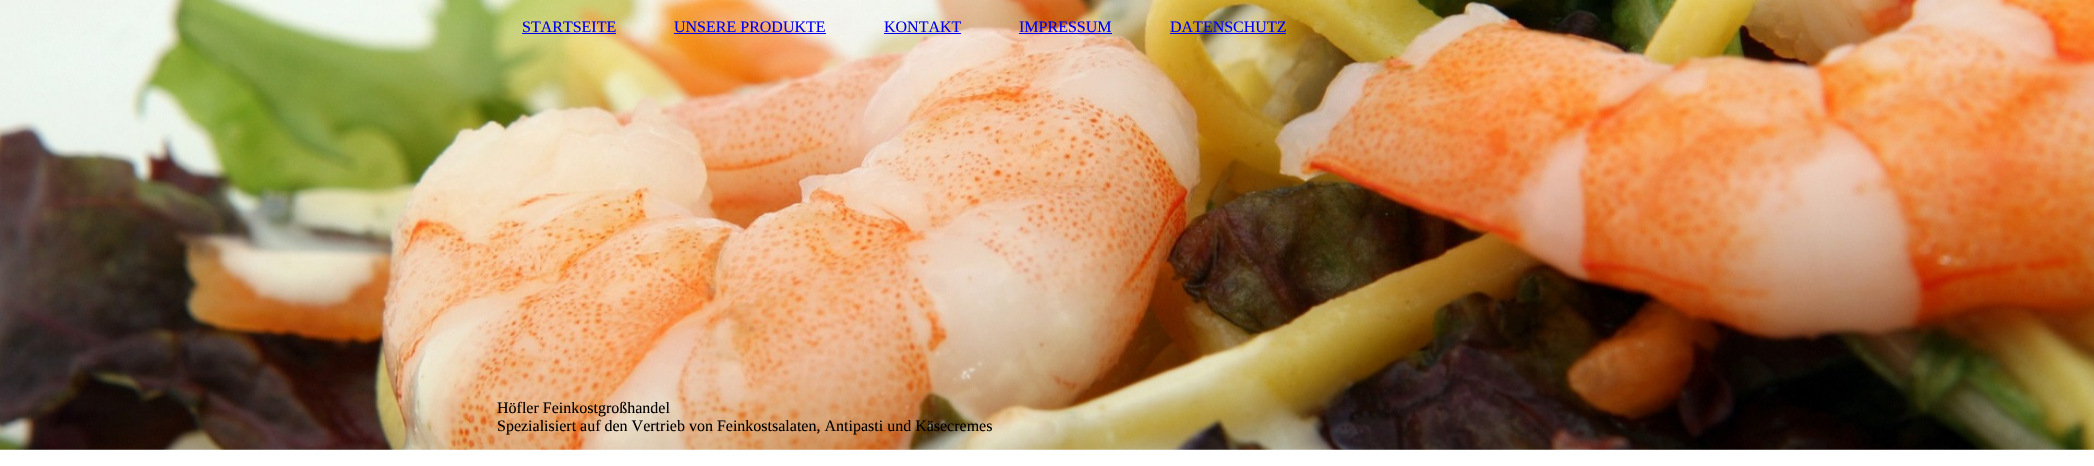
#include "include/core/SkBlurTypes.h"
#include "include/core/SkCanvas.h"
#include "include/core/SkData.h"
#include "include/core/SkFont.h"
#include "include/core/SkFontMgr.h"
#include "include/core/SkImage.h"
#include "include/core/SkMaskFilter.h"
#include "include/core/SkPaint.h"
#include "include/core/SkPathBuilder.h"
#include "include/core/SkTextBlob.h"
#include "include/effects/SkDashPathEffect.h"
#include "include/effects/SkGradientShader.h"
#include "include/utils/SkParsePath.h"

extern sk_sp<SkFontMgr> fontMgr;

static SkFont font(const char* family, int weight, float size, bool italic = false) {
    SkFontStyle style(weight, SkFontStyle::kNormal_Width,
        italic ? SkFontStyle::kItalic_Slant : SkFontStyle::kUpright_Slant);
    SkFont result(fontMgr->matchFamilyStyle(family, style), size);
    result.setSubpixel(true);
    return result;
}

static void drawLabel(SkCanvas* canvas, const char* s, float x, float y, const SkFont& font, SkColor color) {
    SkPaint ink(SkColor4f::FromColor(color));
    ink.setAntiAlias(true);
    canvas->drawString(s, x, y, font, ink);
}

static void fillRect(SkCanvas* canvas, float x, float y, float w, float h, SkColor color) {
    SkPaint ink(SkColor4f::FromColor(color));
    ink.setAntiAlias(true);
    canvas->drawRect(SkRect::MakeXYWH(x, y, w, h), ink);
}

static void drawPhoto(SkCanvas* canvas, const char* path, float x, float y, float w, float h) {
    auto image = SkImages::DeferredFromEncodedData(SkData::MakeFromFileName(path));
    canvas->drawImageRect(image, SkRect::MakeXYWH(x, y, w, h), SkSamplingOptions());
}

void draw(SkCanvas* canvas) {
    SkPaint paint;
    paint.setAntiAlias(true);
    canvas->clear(0xFFFFFFFF);
    drawPhoto(canvas, "assets/img1.png", 0, 0, 2094, 450);
    SkFont font1 = font("Liberation Serif", 400, 16);
    drawLabel(canvas, "STARTSEITE", 522, 32, font1, 0xFF0000EE);
    fillRect(canvas, 522, 33, 94, 1, 0xFF0000EE);
    drawLabel(canvas, "UNSERE PRODUKTE", 674, 32, font1, 0xFF0000EE);
    fillRect(canvas, 674, 33, 152, 1, 0xFF0000EE);
    drawLabel(canvas, "KONTAKT", 884, 32, font1, 0xFF0000EE);
    fillRect(canvas, 884, 33, 77, 1, 0xFF0000EE);
    drawLabel(canvas, "IMPRESSUM", 1019, 32, font1, 0xFF0000EE);
    fillRect(canvas, 1019, 33, 93, 1, 0xFF0000EE);
    drawLabel(canvas, "DATENSCHUTZ", 1170, 32, font1, 0xFF0000EE);
    fillRect(canvas, 1170, 33, 116, 1, 0xFF0000EE);
    drawLabel(canvas, "Höfler Feinkostgroßhandel", 497, 413, font1, 0xFF000000);
    drawLabel(canvas, "Spezialisiert auf den Vertrieb von Feinkostsalaten, Antipasti und Käsecremes", 497, 431, font1, 0xFF000000);
}
